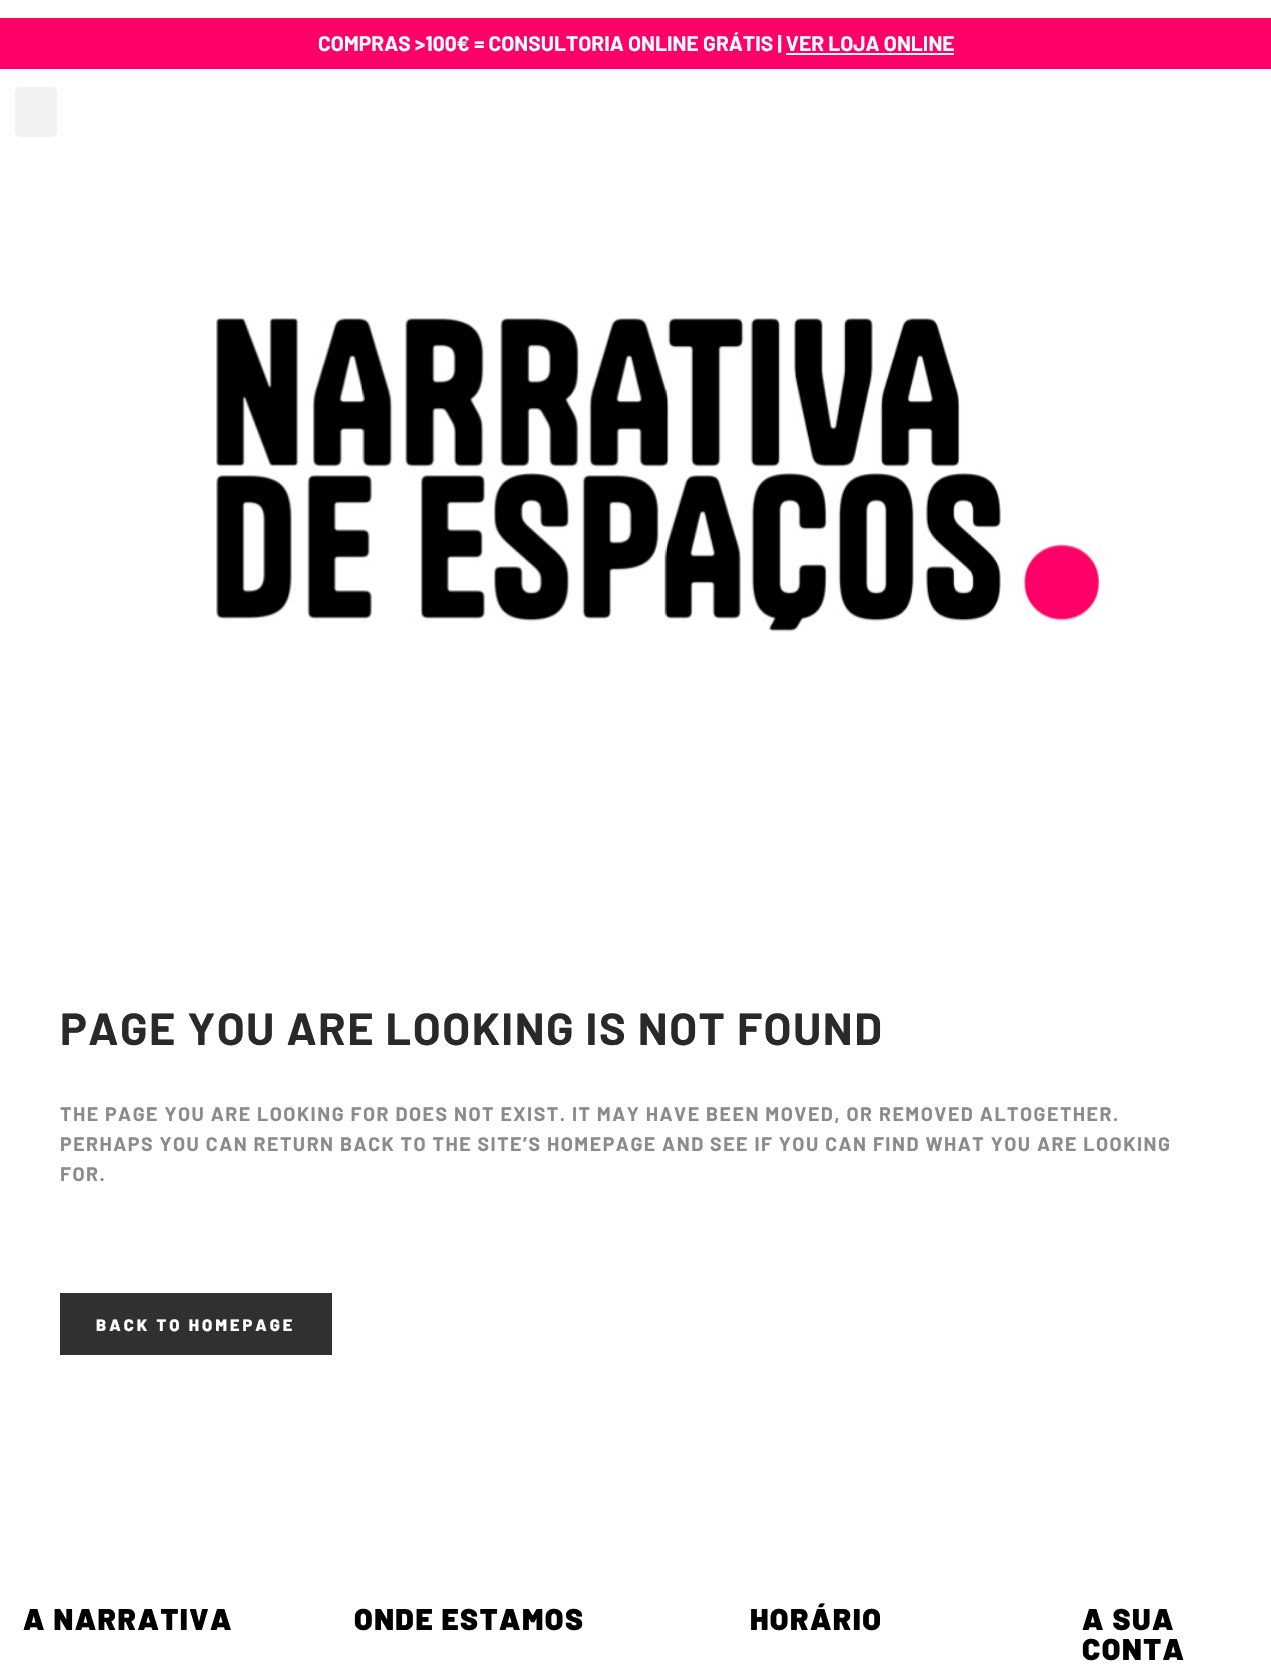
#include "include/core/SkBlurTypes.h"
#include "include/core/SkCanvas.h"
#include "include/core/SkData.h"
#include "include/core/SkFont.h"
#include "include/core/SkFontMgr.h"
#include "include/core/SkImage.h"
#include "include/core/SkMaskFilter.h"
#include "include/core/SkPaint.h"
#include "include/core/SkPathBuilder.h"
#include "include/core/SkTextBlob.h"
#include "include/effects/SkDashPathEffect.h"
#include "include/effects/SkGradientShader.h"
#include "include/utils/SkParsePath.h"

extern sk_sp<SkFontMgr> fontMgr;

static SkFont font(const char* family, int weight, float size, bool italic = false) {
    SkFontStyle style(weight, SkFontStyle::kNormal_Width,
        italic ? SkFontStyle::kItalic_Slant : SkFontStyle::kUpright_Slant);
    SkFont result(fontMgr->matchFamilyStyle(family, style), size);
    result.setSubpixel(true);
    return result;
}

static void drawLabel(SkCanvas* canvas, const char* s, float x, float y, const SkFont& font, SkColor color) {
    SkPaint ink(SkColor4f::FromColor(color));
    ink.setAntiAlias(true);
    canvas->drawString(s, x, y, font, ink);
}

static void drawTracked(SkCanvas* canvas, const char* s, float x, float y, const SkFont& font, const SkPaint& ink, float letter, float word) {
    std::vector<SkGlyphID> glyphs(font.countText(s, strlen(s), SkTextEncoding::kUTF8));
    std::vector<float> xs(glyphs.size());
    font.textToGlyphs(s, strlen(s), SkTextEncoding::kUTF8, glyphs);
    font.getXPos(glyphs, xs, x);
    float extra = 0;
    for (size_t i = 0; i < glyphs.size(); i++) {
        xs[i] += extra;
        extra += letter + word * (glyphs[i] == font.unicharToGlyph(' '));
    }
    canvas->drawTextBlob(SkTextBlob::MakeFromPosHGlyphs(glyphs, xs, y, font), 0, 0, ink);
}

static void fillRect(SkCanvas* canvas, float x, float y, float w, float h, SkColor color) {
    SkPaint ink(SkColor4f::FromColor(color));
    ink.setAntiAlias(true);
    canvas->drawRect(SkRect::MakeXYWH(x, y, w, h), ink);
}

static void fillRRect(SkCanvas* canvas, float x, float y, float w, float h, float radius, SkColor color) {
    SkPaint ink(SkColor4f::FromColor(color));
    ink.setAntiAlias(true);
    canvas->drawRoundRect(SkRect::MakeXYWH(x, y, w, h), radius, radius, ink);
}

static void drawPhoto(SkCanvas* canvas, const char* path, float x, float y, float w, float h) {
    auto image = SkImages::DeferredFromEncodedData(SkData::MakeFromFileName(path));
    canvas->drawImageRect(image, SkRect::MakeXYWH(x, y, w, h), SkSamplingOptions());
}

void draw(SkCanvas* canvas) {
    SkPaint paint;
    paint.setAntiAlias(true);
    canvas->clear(0xFFFFFFFF);
    fillRect(canvas, 0, 18, 1271, 51, 0xFFFF0068);
    SkFont font1 = font("Barlow", 700, 21);
    drawLabel(canvas, "COMPRAS >100€ = CONSULTORIA ONLINE GRÁTIS | VER LOJA ONLINE", 318, 51, font1, 0xFFFFFFFF);
    fillRect(canvas, 786, 53, 168, 2, 0xFFFFFFFF);
    fillRRect(canvas, 15, 87, 42, 50, 5, 0xFFF2F2F2);
    drawPhoto(canvas, "assets/img1.png", 216, 318, 884, 314);
    SkFont font2 = font("Barlow", 700, 45);
    paint.setColor(0xFF292929);
    drawTracked(canvas, "PAGE YOU ARE LOOKING IS NOT FOUND", 60, 1045, font2, paint, 1.5f, 0);
    SkFont font3 = font("Barlow", 700, 19.5f);
    paint.setColor(0xFF8B8B8B);
    drawTracked(canvas, "THE PAGE YOU ARE LOOKING FOR DOES NOT EXIST. IT MAY HAVE BEEN MOVED, OR REMOVED ALTOGETHER.", 60, 1121, font3, paint, 1.5f, 0);
    drawTracked(canvas, "PERHAPS YOU CAN RETURN BACK TO THE SITE’S HOMEPAGE AND SEE IF YOU CAN FIND WHAT YOU ARE LOOKING", 60, 1151, font3, paint, 1.5f, 0);
    drawTracked(canvas, "FOR.", 60, 1181, font3, paint, 1.5f, 0);
    fillRect(canvas, 60, 1293, 272, 62, 0xFF303030);
    SkFont font4 = font("Barlow", 800, 16.5f);
    paint.setColor(0xFFFFFFFF);
    drawTracked(canvas, "BACK TO HOMEPAGE", 96, 1331, font4, paint, 3, 0);
    SkFont font5 = font("Barlow", 900, 30);
    paint.setColor(0xFF000000);
    drawTracked(canvas, "A NARRATIVA", 23, 1630, font5, paint, 1.5f, 0);
    drawTracked(canvas, "ONDE ESTAMOS", 354, 1630, font5, paint, 1.5f, 0);
    drawTracked(canvas, "HORÁRIO", 750, 1630, font5, paint, 1.5f, 0);
    drawTracked(canvas, "A SUA", 1082, 1630, font5, paint, 1.5f, 0);
    drawTracked(canvas, "CONTA", 1082, 1660, font5, paint, 1.5f, 0);
}
